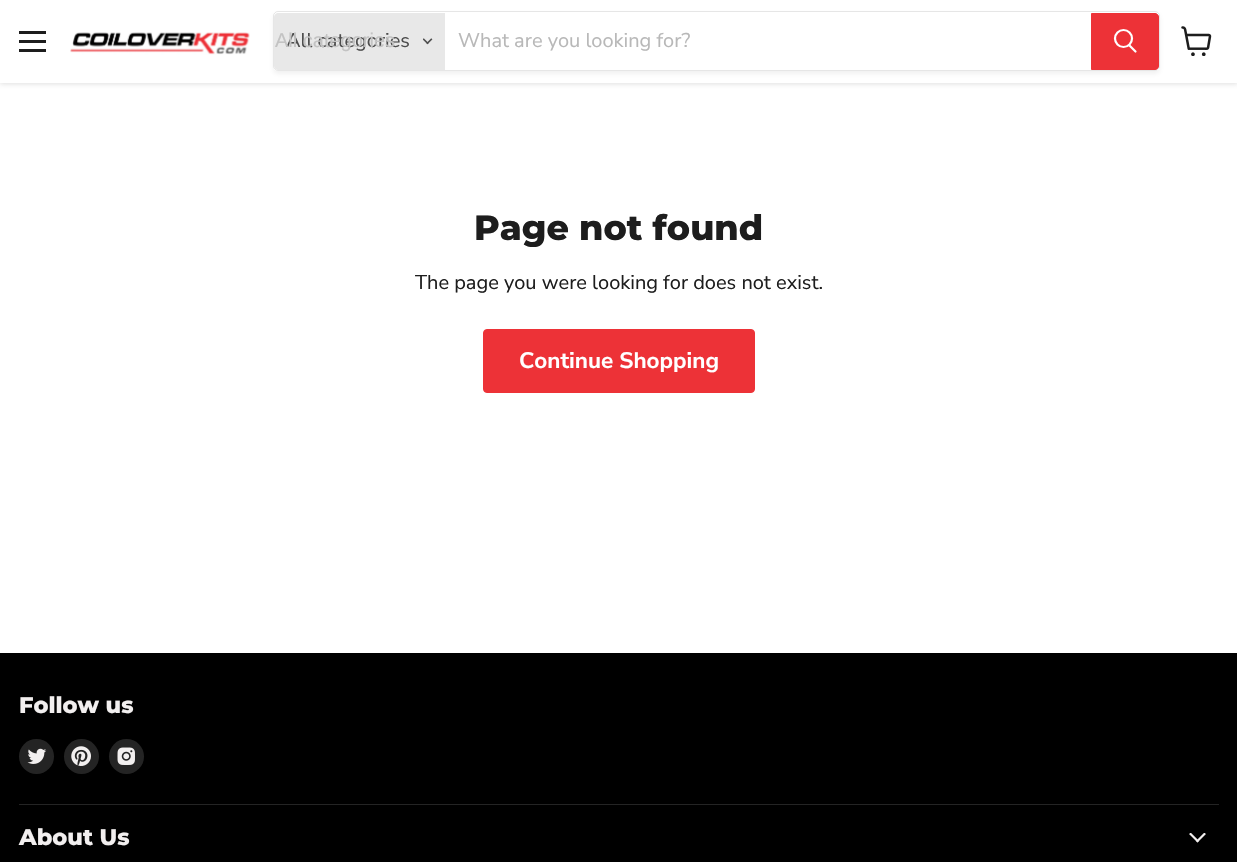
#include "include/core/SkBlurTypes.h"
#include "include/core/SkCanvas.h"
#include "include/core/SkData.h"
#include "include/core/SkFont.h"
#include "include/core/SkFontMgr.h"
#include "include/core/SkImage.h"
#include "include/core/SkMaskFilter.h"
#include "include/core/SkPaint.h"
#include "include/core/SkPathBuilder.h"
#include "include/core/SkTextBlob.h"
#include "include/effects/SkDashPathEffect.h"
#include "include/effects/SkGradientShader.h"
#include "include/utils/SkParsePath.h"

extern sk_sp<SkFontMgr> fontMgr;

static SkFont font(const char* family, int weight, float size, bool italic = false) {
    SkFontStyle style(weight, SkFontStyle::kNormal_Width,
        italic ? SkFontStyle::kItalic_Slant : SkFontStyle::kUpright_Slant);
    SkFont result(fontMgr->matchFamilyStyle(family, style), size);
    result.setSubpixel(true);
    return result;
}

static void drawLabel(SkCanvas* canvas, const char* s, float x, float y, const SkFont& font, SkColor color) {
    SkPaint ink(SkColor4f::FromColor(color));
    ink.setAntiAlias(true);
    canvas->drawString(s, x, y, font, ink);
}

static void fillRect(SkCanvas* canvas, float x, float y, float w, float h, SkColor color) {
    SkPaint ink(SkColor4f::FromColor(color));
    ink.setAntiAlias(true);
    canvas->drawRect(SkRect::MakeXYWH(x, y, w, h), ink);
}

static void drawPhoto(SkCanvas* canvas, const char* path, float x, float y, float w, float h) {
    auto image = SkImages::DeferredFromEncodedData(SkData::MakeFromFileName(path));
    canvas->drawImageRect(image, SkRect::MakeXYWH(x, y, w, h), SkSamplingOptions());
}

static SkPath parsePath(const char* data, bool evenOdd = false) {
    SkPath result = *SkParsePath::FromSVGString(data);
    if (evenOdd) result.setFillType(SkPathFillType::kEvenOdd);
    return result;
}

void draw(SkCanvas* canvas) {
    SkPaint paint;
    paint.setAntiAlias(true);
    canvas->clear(0xFFFFFFFF);
    paint.setColor(0x40808080);
    paint.setMaskFilter(SkMaskFilter::MakeBlur(kNormal_SkBlurStyle, 2.5f));
    canvas->drawRect(SkRect::MakeXYWH(0, 1, 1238, 83), paint);
    paint.setMaskFilter(nullptr);
    fillRect(canvas, 0, 0, 1237, 83, 0xFFFFFFFF);
    fillRect(canvas, 19, 31, 27, 3, 0xFF1D1D1D);
    fillRect(canvas, 19, 40, 27, 3, 0xFF1D1D1D);
    fillRect(canvas, 19, 49, 27, 3, 0xFF1D1D1D);
    drawPhoto(canvas, "assets/img1.png", 70, 32, 180, 23);
    canvas->save();
    canvas->clipPath(parsePath("M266 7H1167V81H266ZM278 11H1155C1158 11 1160 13 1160 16V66C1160 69 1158 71 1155 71H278C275 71 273 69 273 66V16C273 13 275 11 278 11Z", true), true);
    paint.setColor(0x1C808080);
    paint.setMaskFilter(SkMaskFilter::MakeBlur(kNormal_SkBlurStyle, 2));
    canvas->drawRoundRect(SkRect::MakeXYWH(273, 14, 887, 60), 5, 5, paint);
    paint.setMaskFilter(nullptr);
    canvas->restore();
    paint.setStroke(true);
    paint.setStrokeWidth(1);
    paint.setColor(0x33808080);
    canvas->drawRoundRect(SkRect::MakeXYWH(273.5f, 11.5f, 886, 59), 4.5f, 4.5f, paint);
    paint.setStroke(false);
    paint.setColor(0xFFE8E8E8);
    canvas->drawPath(parsePath("M278 13H445V70H278C276 70 274 68 274 66V17C274 15 276 13 278 13Z"), paint);
    SkFont font1 = font("Nunito Sans", 400, 20);
    drawLabel(canvas, "All categories", 286, 47, font1, 0xFF4D4D4D);
    SkFont font2 = font("Liberation Sans", 400, 20);
    drawLabel(canvas, "All categories", 275, 47, font2, 0xFFC3C3C3);
    drawPhoto(canvas, "assets/img2.png", 423, 38, 10, 7);
    drawLabel(canvas, "What are you looking for?", 458, 47, font1, 0xFFB8B8B8);
    paint.setColor(0xFFED3237);
    canvas->drawPath(parsePath("M1091.5 13.5H1155C1157 13.5 1158.5 15 1158.5 17V66C1158.5 68 1157 69.5 1155 69.5H1091.5Z"), paint);
    paint.setStroke(true);
    canvas->drawPath(parsePath("M1091.5 13.5H1155C1157 13.5 1158.5 15 1158.5 17V66C1158.5 68 1157 69.5 1155 69.5H1091.5Z"), paint);
    paint.setStrokeWidth(2.2f);
    paint.setStrokeCap(SkPaint::kRound_Cap);
    paint.setColor(0xFFFFFFFF);
    canvas->drawPath(parsePath("M1135.5 51.5L1129.5 45.5"), paint);
    paint.setStrokeCap(SkPaint::kButt_Cap);
    canvas->drawCircle(1123.5f, 38.5f, 8.5f, paint);
    drawPhoto(canvas, "assets/img3.png", 1181, 26, 31, 30);
    SkFont font3 = font("Montserrat", 800, 35);
    drawLabel(canvas, "Page not found", 474, 240, font3, 0xFF1D1D1D);
    drawLabel(canvas, "The page you were looking for does not exist.", 415, 289, font1, 0xFF1D1D1D);
    paint.setStroke(false);
    paint.setColor(0xFFED3237);
    canvas->drawRoundRect(SkRect::MakeXYWH(483.5f, 329.5f, 271, 63), 3.5f, 3.5f, paint);
    paint.setStroke(true);
    paint.setStrokeWidth(1);
    canvas->drawRoundRect(SkRect::MakeXYWH(483.5f, 329.5f, 271, 63), 3.5f, 3.5f, paint);
    SkFont font4 = font("Nunito Sans", 700, 22.5f);
    drawLabel(canvas, "Continue Shopping", 519, 368, font4, 0xFFFFFFFF);
    fillRect(canvas, 0, 653, 1237, 209, 0xFF000000);
    fillRect(canvas, 19, 804, 1200, 1, 0xFF242424);
    SkFont font5 = font("Montserrat", 800, 22.5f);
    drawLabel(canvas, "Follow us", 19, 713, font5, 0xFFF2EFEF);
    paint.setStroke(false);
    paint.setColor(0xFF242424);
    canvas->drawCircle(36.5f, 756.5f, 17.5f, paint);
    drawPhoto(canvas, "assets/img4.png", 27, 748, 20, 16);
    canvas->drawCircle(81.5f, 756.5f, 17.5f, paint);
    drawPhoto(canvas, "assets/img5.png", 71, 746, 20, 20);
    canvas->drawCircle(126.5f, 756.5f, 17.5f, paint);
    drawPhoto(canvas, "assets/img6.png", 117, 747, 18, 18);
    drawLabel(canvas, "About Us", 19, 845, font5, 0xFFF2EFEF);
    drawPhoto(canvas, "assets/img7.png", 1189, 833, 17, 10);
}
